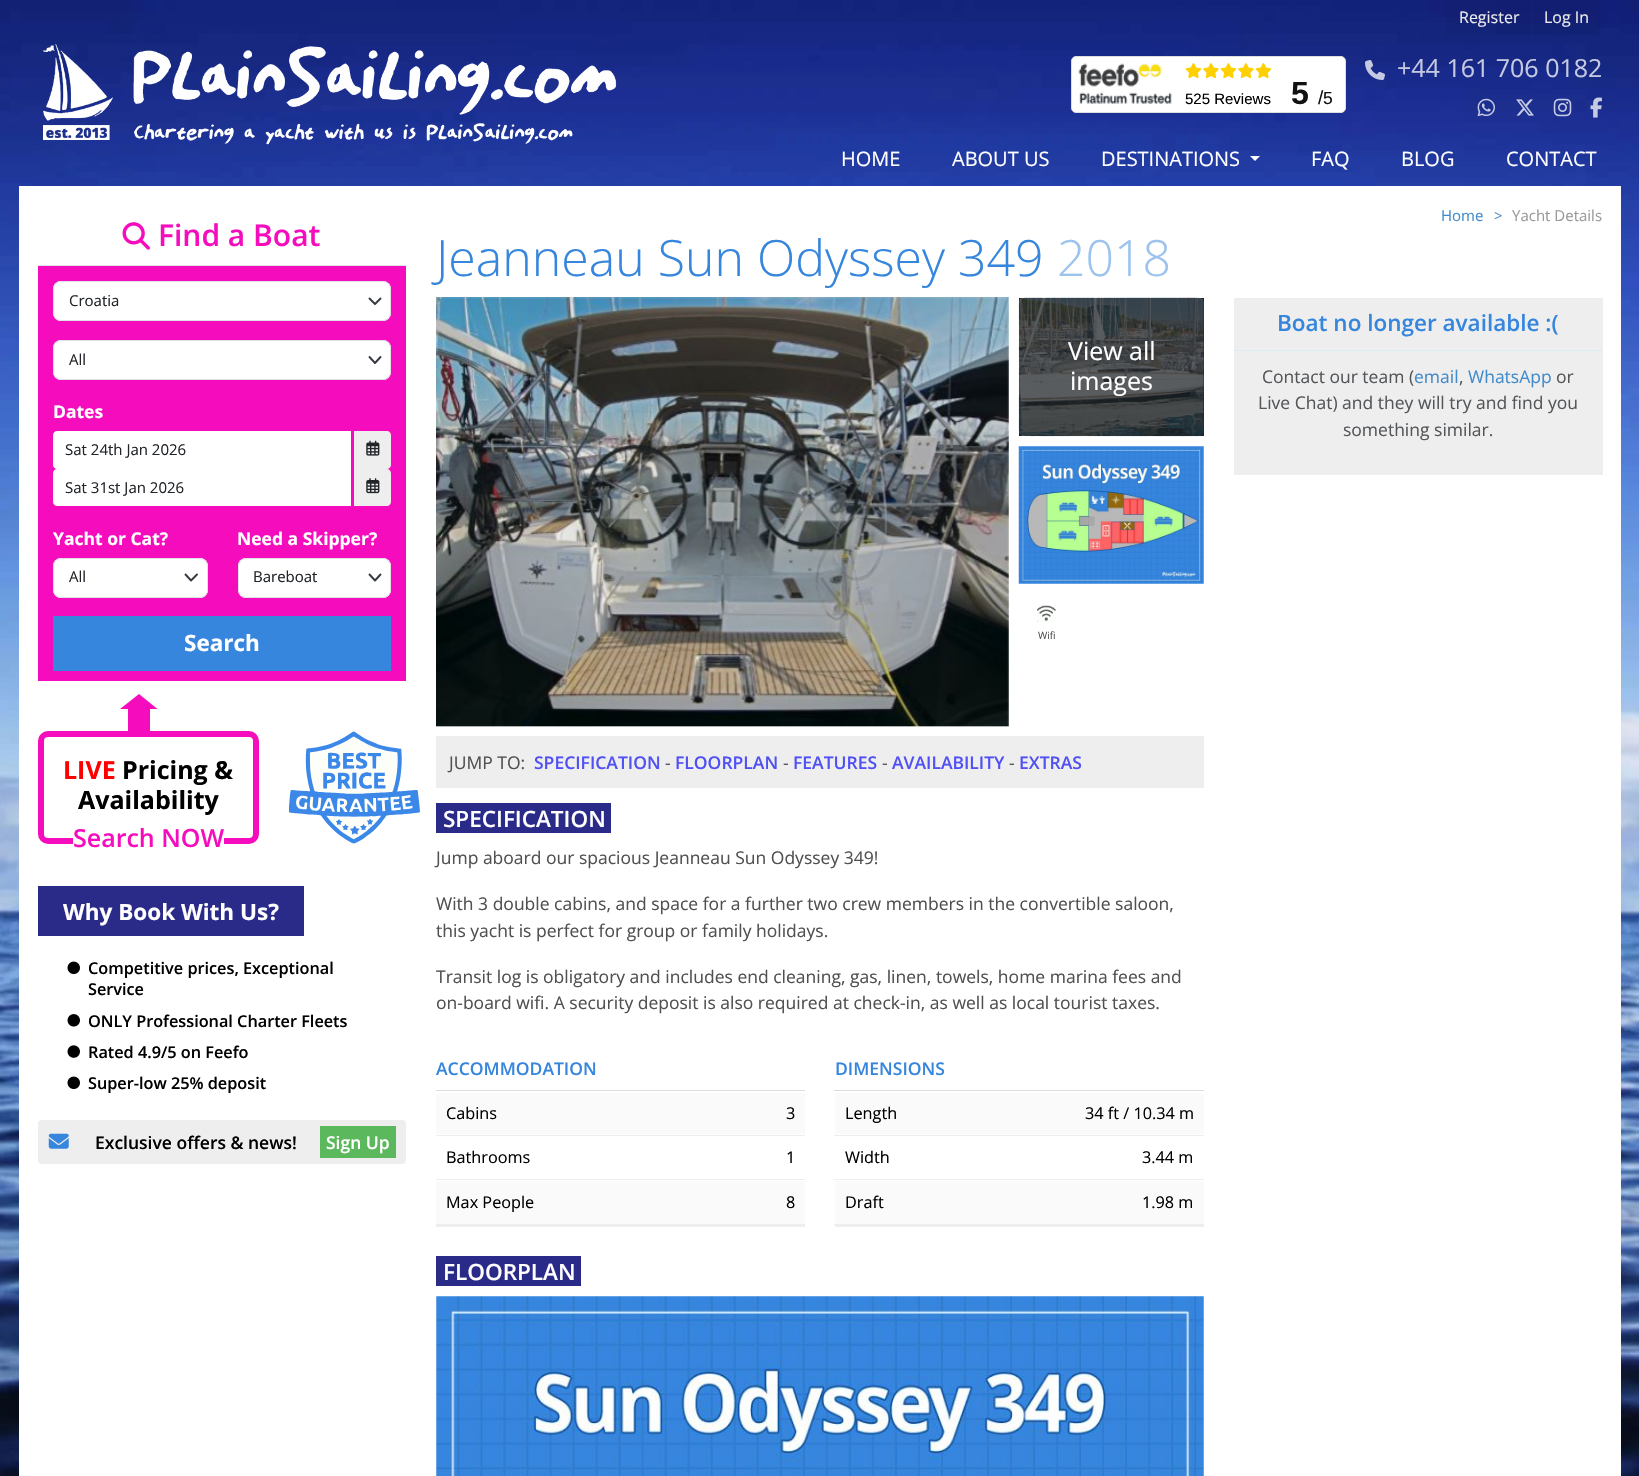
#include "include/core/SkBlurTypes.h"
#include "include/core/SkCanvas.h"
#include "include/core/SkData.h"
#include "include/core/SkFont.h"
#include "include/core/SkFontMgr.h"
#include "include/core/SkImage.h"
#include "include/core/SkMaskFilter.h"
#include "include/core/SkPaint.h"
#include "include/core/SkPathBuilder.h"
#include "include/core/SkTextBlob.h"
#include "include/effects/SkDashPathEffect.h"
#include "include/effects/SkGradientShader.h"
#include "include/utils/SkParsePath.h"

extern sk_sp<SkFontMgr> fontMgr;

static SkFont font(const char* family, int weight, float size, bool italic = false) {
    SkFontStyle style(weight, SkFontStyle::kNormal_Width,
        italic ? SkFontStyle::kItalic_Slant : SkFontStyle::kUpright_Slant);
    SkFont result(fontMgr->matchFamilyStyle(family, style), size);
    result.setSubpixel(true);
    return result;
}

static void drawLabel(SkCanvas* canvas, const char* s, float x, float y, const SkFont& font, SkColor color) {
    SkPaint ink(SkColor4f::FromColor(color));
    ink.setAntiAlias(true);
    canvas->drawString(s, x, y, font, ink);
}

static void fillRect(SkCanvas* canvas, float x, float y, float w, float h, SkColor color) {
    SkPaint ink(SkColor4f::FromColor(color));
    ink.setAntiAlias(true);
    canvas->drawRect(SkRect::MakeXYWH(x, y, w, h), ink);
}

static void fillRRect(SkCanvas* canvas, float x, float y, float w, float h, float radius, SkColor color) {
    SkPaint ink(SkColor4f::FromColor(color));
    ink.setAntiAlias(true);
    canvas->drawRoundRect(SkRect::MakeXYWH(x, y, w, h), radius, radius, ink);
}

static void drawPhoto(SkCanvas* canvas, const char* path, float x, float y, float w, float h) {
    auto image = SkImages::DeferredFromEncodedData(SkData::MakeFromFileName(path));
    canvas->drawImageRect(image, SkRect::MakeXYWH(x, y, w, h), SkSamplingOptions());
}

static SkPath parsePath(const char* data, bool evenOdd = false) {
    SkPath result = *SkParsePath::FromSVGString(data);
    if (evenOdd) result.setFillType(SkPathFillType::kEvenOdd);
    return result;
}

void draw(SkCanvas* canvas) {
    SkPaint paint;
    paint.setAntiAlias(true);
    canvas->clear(0xFFFFFFFF);
    drawPhoto(canvas, "assets/img1.png", 0, 0, 1639, 1476);
    drawPhoto(canvas, "assets/img2.png", 43, 44, 574, 101);
    fillRect(canvas, 1446, 0, 85, 36, 0x0D000000);
    SkFont font1 = font("Open Sans", 400, 16);
    drawLabel(canvas, "Register", 1459, 23, font1, 0xFFEAEAEA);
    fillRect(canvas, 1533, 0, 68, 36, 0x0D000000);
    drawLabel(canvas, "Log In", 1544, 23, font1, 0xFFEAEAEA);
    drawPhoto(canvas, "assets/img3.png", 1365, 60, 20, 20);
    SkFont font2 = font("Open Sans", 400, 25);
    drawLabel(canvas, "+44 161 706 0182", 1397, 77, font2, 0xFFC5C9E1);
    drawPhoto(canvas, "assets/img4.png", 1477, 98, 18, 19);
    drawPhoto(canvas, "assets/img5.png", 1516, 99, 18, 17);
    drawPhoto(canvas, "assets/img6.png", 1553, 98, 19, 19);
    drawPhoto(canvas, "assets/img7.png", 1590, 97, 12, 21);
    paint.setColor(0xFFFFFFFF);
    canvas->drawRoundRect(SkRect::MakeXYWH(1071.5f, 56.5f, 274, 56), 4.5f, 4.5f, paint);
    paint.setStroke(true);
    paint.setStrokeWidth(1);
    paint.setColor(0xFFDDDDDD);
    canvas->drawRoundRect(SkRect::MakeXYWH(1071.5f, 56.5f, 274, 56), 4.5f, 4.5f, paint);
    drawPhoto(canvas, "assets/img8.png", 1078, 63, 94, 41);
    drawPhoto(canvas, "assets/img9.png", 1185, 63, 17, 16);
    drawPhoto(canvas, "assets/img10.png", 1203, 63, 16, 16);
    drawPhoto(canvas, "assets/img9.png", 1220, 63, 17, 16);
    drawPhoto(canvas, "assets/img10.png", 1238, 63, 16, 16);
    drawPhoto(canvas, "assets/img9.png", 1255, 63, 17, 16);
    SkFont font3 = font("Liberation Sans", 400, 15);
    drawLabel(canvas, "525 Reviews", 1185, 104, font3, 0xFF000000);
    SkFont font4 = font("Liberation Sans", 700, 32);
    drawLabel(canvas, "5", 1291, 104, font4, 0xFF111111);
    SkFont font5 = font("Liberation Sans", 400, 19);
    drawLabel(canvas, "/", 1318, 104, font5, 0xFF111111);
    SkFont font6 = font("Liberation Sans", 400, 17.5f);
    drawLabel(canvas, "5", 1323, 104, font6, 0xFF111111);
    SkFont font7 = font("Open Sans", 400, 20);
    drawLabel(canvas, "HOME", 841, 166, font7, 0xFFFFFFFF);
    drawLabel(canvas, "ABOUT US", 952, 166, font7, 0xFFFFFFFF);
    drawLabel(canvas, "DESTINATIONS", 1101, 166, font7, 0xFFFFFFFF);
    paint.setStroke(false);
    paint.setColor(0xFFFFFFFF);
    canvas->drawPath(parsePath("M1250 156H1260L1255 161Z"), paint);
    drawLabel(canvas, "FAQ", 1311, 166, font7, 0xFFFFFFFF);
    drawLabel(canvas, "BLOG", 1401, 166, font7, 0xFFFFFFFF);
    drawLabel(canvas, "CONTACT", 1506, 166, font7, 0xFFFFFFFF);
    fillRect(canvas, 19, 186, 1602, 1290, 0xFFFFFFFF);
    fillRect(canvas, 38, 265, 368, 1, 0xFFDEE2E6);
    drawPhoto(canvas, "assets/img11.png", 122, 222, 28, 28);
    SkFont font8 = font("Open Sans", 600, 30);
    drawLabel(canvas, "Find a Boat", 158, 246, font8, 0xFFF50DBD);
    fillRect(canvas, 38, 266, 368, 415, 0xFFF50DBD);
    fillRRect(canvas, 53, 281, 338, 40, 8, 0xFFFFFFFF);
    paint.setStroke(true);
    paint.setStrokeWidth(1.9f);
    paint.setStrokeCap(SkPaint::kRound_Cap);
    paint.setStrokeJoin(SkPaint::kRound_Join);
    paint.setColor(0xFF343A40);
    canvas->drawPath(parsePath("M369.5 298.5L375 304L380.5 298.5"), paint);
    paint.setStrokeWidth(1);
    paint.setStrokeCap(SkPaint::kButt_Cap);
    paint.setStrokeJoin(SkPaint::kMiter_Join);
    paint.setColor(0xFFDEE2E6);
    canvas->drawRoundRect(SkRect::MakeXYWH(53.5f, 281.5f, 337, 39), 7.5f, 7.5f, paint);
    SkFont font9 = font("Open Sans", 400, 15);
    drawLabel(canvas, "Croatia", 69, 306, font9, 0xFF212529);
    fillRRect(canvas, 53, 340, 338, 40, 8, 0xFFFFFFFF);
    paint.setStrokeWidth(1.9f);
    paint.setStrokeCap(SkPaint::kRound_Cap);
    paint.setStrokeJoin(SkPaint::kRound_Join);
    paint.setColor(0xFF343A40);
    canvas->drawPath(parsePath("M369.5 357L375 363L380.5 357"), paint);
    paint.setStrokeWidth(1);
    paint.setStrokeCap(SkPaint::kButt_Cap);
    paint.setStrokeJoin(SkPaint::kMiter_Join);
    paint.setColor(0xFFDEE2E6);
    canvas->drawRoundRect(SkRect::MakeXYWH(53.5f, 340.5f, 337, 39), 7.5f, 7.5f, paint);
    drawLabel(canvas, "All", 69, 365, font9, 0xFF212529);
    SkFont font10 = font("Open Sans", 700, 17.5f);
    drawLabel(canvas, "Dates", 53, 418, font10, 0xFFFFFFFF);
    paint.setStroke(false);
    paint.setColor(0xFFFFFFFF);
    canvas->drawPath(parsePath("M57 431H351V469H57C55 469 53 467 53 465V435C53 433 55 431 57 431Z"), paint);
    drawLabel(canvas, "Sat 24th Jan 2026", 65, 455, font9, 0xFF212529);
    paint.setColor(0xFFEEEEEE);
    canvas->drawPath(parsePath("M354 431H387C389 431 391 433 391 435V465C391 467 389 469 387 469H354Z"), paint);
    drawPhoto(canvas, "assets/img12.png", 366, 440, 14, 16);
    paint.setColor(0xFFFFFFFF);
    canvas->drawPath(parsePath("M57 469H351V506H57C55 506 53 504 53 502V473C53 471 55 469 57 469Z"), paint);
    drawLabel(canvas, "Sat 31st Jan 2026", 65, 493, font9, 0xFF212529);
    paint.setColor(0xFFEEEEEE);
    canvas->drawPath(parsePath("M354 469H387C389 469 391 471 391 473V502C391 504 389 506 387 506H354Z"), paint);
    drawPhoto(canvas, "assets/img13.png", 366, 478, 14, 16);
    drawLabel(canvas, "Yacht or Cat?", 53, 545, font10, 0xFFFFFFFF);
    fillRRect(canvas, 53, 558, 155, 40, 8, 0xFFFFFFFF);
    paint.setStroke(true);
    paint.setStrokeWidth(1.9f);
    paint.setStrokeCap(SkPaint::kRound_Cap);
    paint.setStrokeJoin(SkPaint::kRound_Join);
    paint.setColor(0xFF343A40);
    canvas->drawPath(parsePath("M185.5 574.5L191 580.5L197 574.5"), paint);
    paint.setStrokeWidth(1);
    paint.setStrokeCap(SkPaint::kButt_Cap);
    paint.setStrokeJoin(SkPaint::kMiter_Join);
    paint.setColor(0xFFDEE2E6);
    canvas->drawRoundRect(SkRect::MakeXYWH(53.5f, 558.5f, 154, 39), 7.5f, 7.5f, paint);
    drawLabel(canvas, "All", 69, 582, font9, 0xFF212529);
    drawLabel(canvas, "Need a Skipper?", 237, 545, font10, 0xFFFFFFFF);
    fillRRect(canvas, 238, 558, 153, 40, 8, 0xFFFFFFFF);
    paint.setStrokeWidth(1.9f);
    paint.setStrokeCap(SkPaint::kRound_Cap);
    paint.setStrokeJoin(SkPaint::kRound_Join);
    paint.setColor(0xFF343A40);
    canvas->drawPath(parsePath("M369.5 574.5L375 580.5L380.5 574.5"), paint);
    paint.setStrokeWidth(1);
    paint.setStrokeCap(SkPaint::kButt_Cap);
    paint.setStrokeJoin(SkPaint::kMiter_Join);
    paint.setColor(0xFFDEE2E6);
    canvas->drawRoundRect(SkRect::MakeXYWH(238.5f, 558.5f, 152, 39), 7.5f, 7.5f, paint);
    drawLabel(canvas, "Bareboat", 253, 582, font9, 0xFF212529);
    fillRect(canvas, 53, 616, 338, 55, 0xFF3686DD);
    SkFont font11 = font("Open Sans", 700, 22.5f);
    drawLabel(canvas, "Search", 184, 651, font11, 0xFFFFFFFF);
    paint.setStroke(false);
    paint.setColor(0xFFF50DBD);
    canvas->drawPath(parsePath("M157.5 709H120L139 694Z"), paint);
    fillRect(canvas, 128, 709, 22, 22, 0xFFF50DBD);
    paint.setStroke(true);
    paint.setStrokeWidth(6);
    canvas->drawRoundRect(SkRect::MakeXYWH(41, 734, 215, 107), 7, 7, paint);
    SkFont font12 = font("Open Sans", 700, 25);
    drawLabel(canvas, "LIVE", 63, 779, font12, 0xFFFF0000);
    drawLabel(canvas, "Pricing &", 122, 779, font12, 0xFF000000);
    drawLabel(canvas, "Availability", 78, 809, font12, 0xFF000000);
    fillRect(canvas, 73, 838, 151, 6, 0xFFFFFFFF);
    SkFont font13 = font("Open Sans", 600, 25);
    drawLabel(canvas, "Search NOW", 73, 847, font13, 0xFFF50DBD);
    drawPhoto(canvas, "assets/img14.png", 289, 731, 131, 113);
    fillRect(canvas, 38, 886, 266, 50, 0xFF2A2A88);
    drawLabel(canvas, "Why Book With Us?", 63, 920, font11, 0xFFFFFFFF);
    drawPhoto(canvas, "assets/img15.png", 67, 961, 13, 14);
    SkFont font14 = font("Open Sans", 600, 16.25f);
    drawLabel(canvas, "Competitive prices, Exceptional", 88, 974, font14, 0xFF000000);
    drawLabel(canvas, "Service", 88, 995, font14, 0xFF000000);
    drawPhoto(canvas, "assets/img16.png", 67, 1014, 13, 13);
    drawLabel(canvas, "ONLY Professional Charter Fleets", 88, 1027, font14, 0xFF000000);
    drawPhoto(canvas, "assets/img17.png", 67, 1045, 13, 13);
    drawLabel(canvas, "Rated 4.9/5 on Feefo", 88, 1058, font14, 0xFF000000);
    drawPhoto(canvas, "assets/img15.png", 67, 1076, 13, 14);
    drawLabel(canvas, "Super-low 25% deposit", 88, 1089, font14, 0xFF000000);
    fillRRect(canvas, 38, 1120, 368, 44, 4, 0xFFEEEEEE);
    drawPhoto(canvas, "assets/img18.png", 48, 1133, 21, 16);
    SkFont font15 = font("Open Sans", 600, 17.5f);
    drawLabel(canvas, "Exclusive offers & news!", 95, 1149, font15, 0xFF000000);
    fillRect(canvas, 320, 1126, 76, 32, 0xFF5CB85C);
    drawLabel(canvas, "Sign Up", 326, 1149, font15, 0xFFFFFFFF);
    drawLabel(canvas, "Home", 1441, 221, font9, 0xFF428BCA);
    drawLabel(canvas, ">", 1494, 221, font9, 0xFF428BCA);
    drawLabel(canvas, "Yacht Details", 1512, 221, font9, 0xFF999999);
    SkFont font16 = font("Open Sans", 300, 50);
    drawLabel(canvas, "Jeanneau Sun Odyssey 349", 436, 276, font16, 0xFF3686DD);
    drawLabel(canvas, "2018", 1057, 276, font16, 0xFF9BC3EE);
    drawPhoto(canvas, "assets/img19.png", 436, 297, 573, 430);
    fillRect(canvas, 1019, 298, 185, 138, 0xFF212529);
    drawPhoto(canvas, "assets/img20.png", 1018, 297, 186, 140);
    fillRRect(canvas, 1019, 298, 185, 138, 6, 0xB3212529);
    drawLabel(canvas, "View all", 1068, 360, font2, 0xFFFFFFFF);
    drawLabel(canvas, "images", 1070, 390, font2, 0xFFFFFFFF);
    drawPhoto(canvas, "assets/img21.png", 1018, 446, 186, 138);
    drawPhoto(canvas, "assets/img22.png", 1037, 605, 19, 17);
    SkFont font17 = font("Open Sans", 400, 10);
    drawLabel(canvas, "Wifi", 1038, 639, font17, 0xFF505050);
    fillRect(canvas, 436, 736, 768, 52, 0xFFEEEEEE);
    SkFont font18 = font("Open Sans", 400, 17.5f);
    drawLabel(canvas, "JUMP TO:", 449, 769, font18, 0xFF505050);
    drawLabel(canvas, "SPECIFICATION", 534, 769, font15, 0xFF5050F5);
    drawLabel(canvas, "-", 665, 769, font18, 0xFF505050);
    drawLabel(canvas, "FLOORPLAN", 675, 769, font15, 0xFF5050F5);
    drawLabel(canvas, "-", 783, 769, font18, 0xFF505050);
    drawLabel(canvas, "FEATURES", 793, 769, font15, 0xFF5050F5);
    drawLabel(canvas, "-", 882, 769, font18, 0xFF505050);
    drawLabel(canvas, "AVAILABILITY", 892, 769, font15, 0xFF5050F5);
    drawLabel(canvas, "-", 1009, 769, font18, 0xFF505050);
    drawLabel(canvas, "EXTRAS", 1019, 769, font15, 0xFF5050F5);
    fillRect(canvas, 436, 803, 175, 30, 0xFF2A2A88);
    SkFont font19 = font("Open Sans", 600, 22.5f);
    drawLabel(canvas, "SPECIFICATION", 443, 827, font19, 0xFFFFFFFF);
    drawLabel(canvas, "Jump aboard our spacious Jeanneau Sun Odyssey 349!", 436, 864, font18, 0xFF505050);
    drawLabel(canvas, "With 3 double cabins, and space for a further two crew members in the convertible saloon,", 436, 910, font18, 0xFF505050);
    drawLabel(canvas, "this yacht is perfect for group or family holidays.", 436, 937, font18, 0xFF505050);
    drawLabel(canvas, "Transit log is obligatory and includes end cleaning, gas, linen, towels, home marina fees and", 436, 983, font18, 0xFF505050);
    drawLabel(canvas, "on-board wifi. A security deposit is also required at check-in, as well as local tourist taxes.", 436, 1009, font18, 0xFF505050);
    drawLabel(canvas, "ACCOMMODATION", 436, 1075, font15, 0xFF3686DD);
    fillRect(canvas, 436, 1224, 369, 3, 0xFFEEEEEE);
    fillRect(canvas, 436, 1093, 369, 41, 0xFFFAFAFA);
    SkFont font20 = font("Open Sans", 400, 16.25f);
    drawLabel(canvas, "Cabins", 446, 1119, font20, 0xFF000000);
    fillRect(canvas, 436, 1090, 369, 1, 0xFFDDDDDD);
    fillRect(canvas, 436, 1135, 369, 1, 0xFFEEEEEE);
    drawLabel(canvas, "3", 786, 1119, font20, 0xFF000000);
    drawLabel(canvas, "Bathrooms", 446, 1163, font20, 0xFF000000);
    fillRect(canvas, 436, 1179, 369, 1, 0xFFEEEEEE);
    drawLabel(canvas, "1", 786, 1163, font20, 0xFF000000);
    fillRect(canvas, 436, 1181, 369, 43, 0xFFFAFAFA);
    drawLabel(canvas, "Max People", 446, 1208, font20, 0xFF000000);
    drawLabel(canvas, "8", 786, 1208, font20, 0xFF000000);
    drawLabel(canvas, "DIMENSIONS", 835, 1075, font15, 0xFF3686DD);
    fillRect(canvas, 835, 1224, 369, 3, 0xFFEEEEEE);
    fillRect(canvas, 835, 1093, 369, 41, 0xFFFAFAFA);
    drawLabel(canvas, "Length", 845, 1119, font20, 0xFF000000);
    fillRect(canvas, 834, 1090, 370, 1, 0xFFDDDDDD);
    fillRect(canvas, 834, 1135, 370, 1, 0xFFEEEEEE);
    drawLabel(canvas, "34 ft / 10.34 m", 1085, 1119, font20, 0xFF000000);
    drawLabel(canvas, "Width", 845, 1163, font20, 0xFF000000);
    fillRect(canvas, 834, 1179, 370, 1, 0xFFEEEEEE);
    drawLabel(canvas, "3.44 m", 1142, 1163, font20, 0xFF000000);
    fillRect(canvas, 835, 1181, 369, 43, 0xFFFAFAFA);
    fillRect(canvas, 834, 1224, 1, 1, 0xFFEEEEEE);
    drawLabel(canvas, "Draft", 845, 1208, font20, 0xFF000000);
    drawLabel(canvas, "1.98 m", 1142, 1208, font20, 0xFF000000);
    fillRect(canvas, 436, 1256, 145, 30, 0xFF2A2A88);
    drawLabel(canvas, "FLOORPLAN", 443, 1280, font19, 0xFFFFFFFF);
    drawPhoto(canvas, "assets/img23.png", 436, 1296, 768, 180);
    fillRect(canvas, 1234, 298, 369, 177, 0xFFEEEEEE);
    fillRect(canvas, 1234, 350, 369, 1, 0xFFD9EDF7);
    drawLabel(canvas, "Boat no longer available :(", 1277, 331, font19, 0xFF3686DD);
    drawLabel(canvas, "Contact our team (", 1262, 383, font18, 0xFF54575A);
    drawLabel(canvas, "email", 1414, 383, font18, 0xFF428BCA);
    drawLabel(canvas, ",", 1459, 383, font18, 0xFF54575A);
    drawLabel(canvas, "WhatsApp", 1468, 383, font18, 0xFF428BCA);
    drawLabel(canvas, "or", 1556, 383, font18, 0xFF54575A);
    drawLabel(canvas, "Live Chat) and they will try and find you", 1258, 409, font18, 0xFF54575A);
    drawLabel(canvas, "something similar.", 1343, 436, font18, 0xFF54575A);
}
